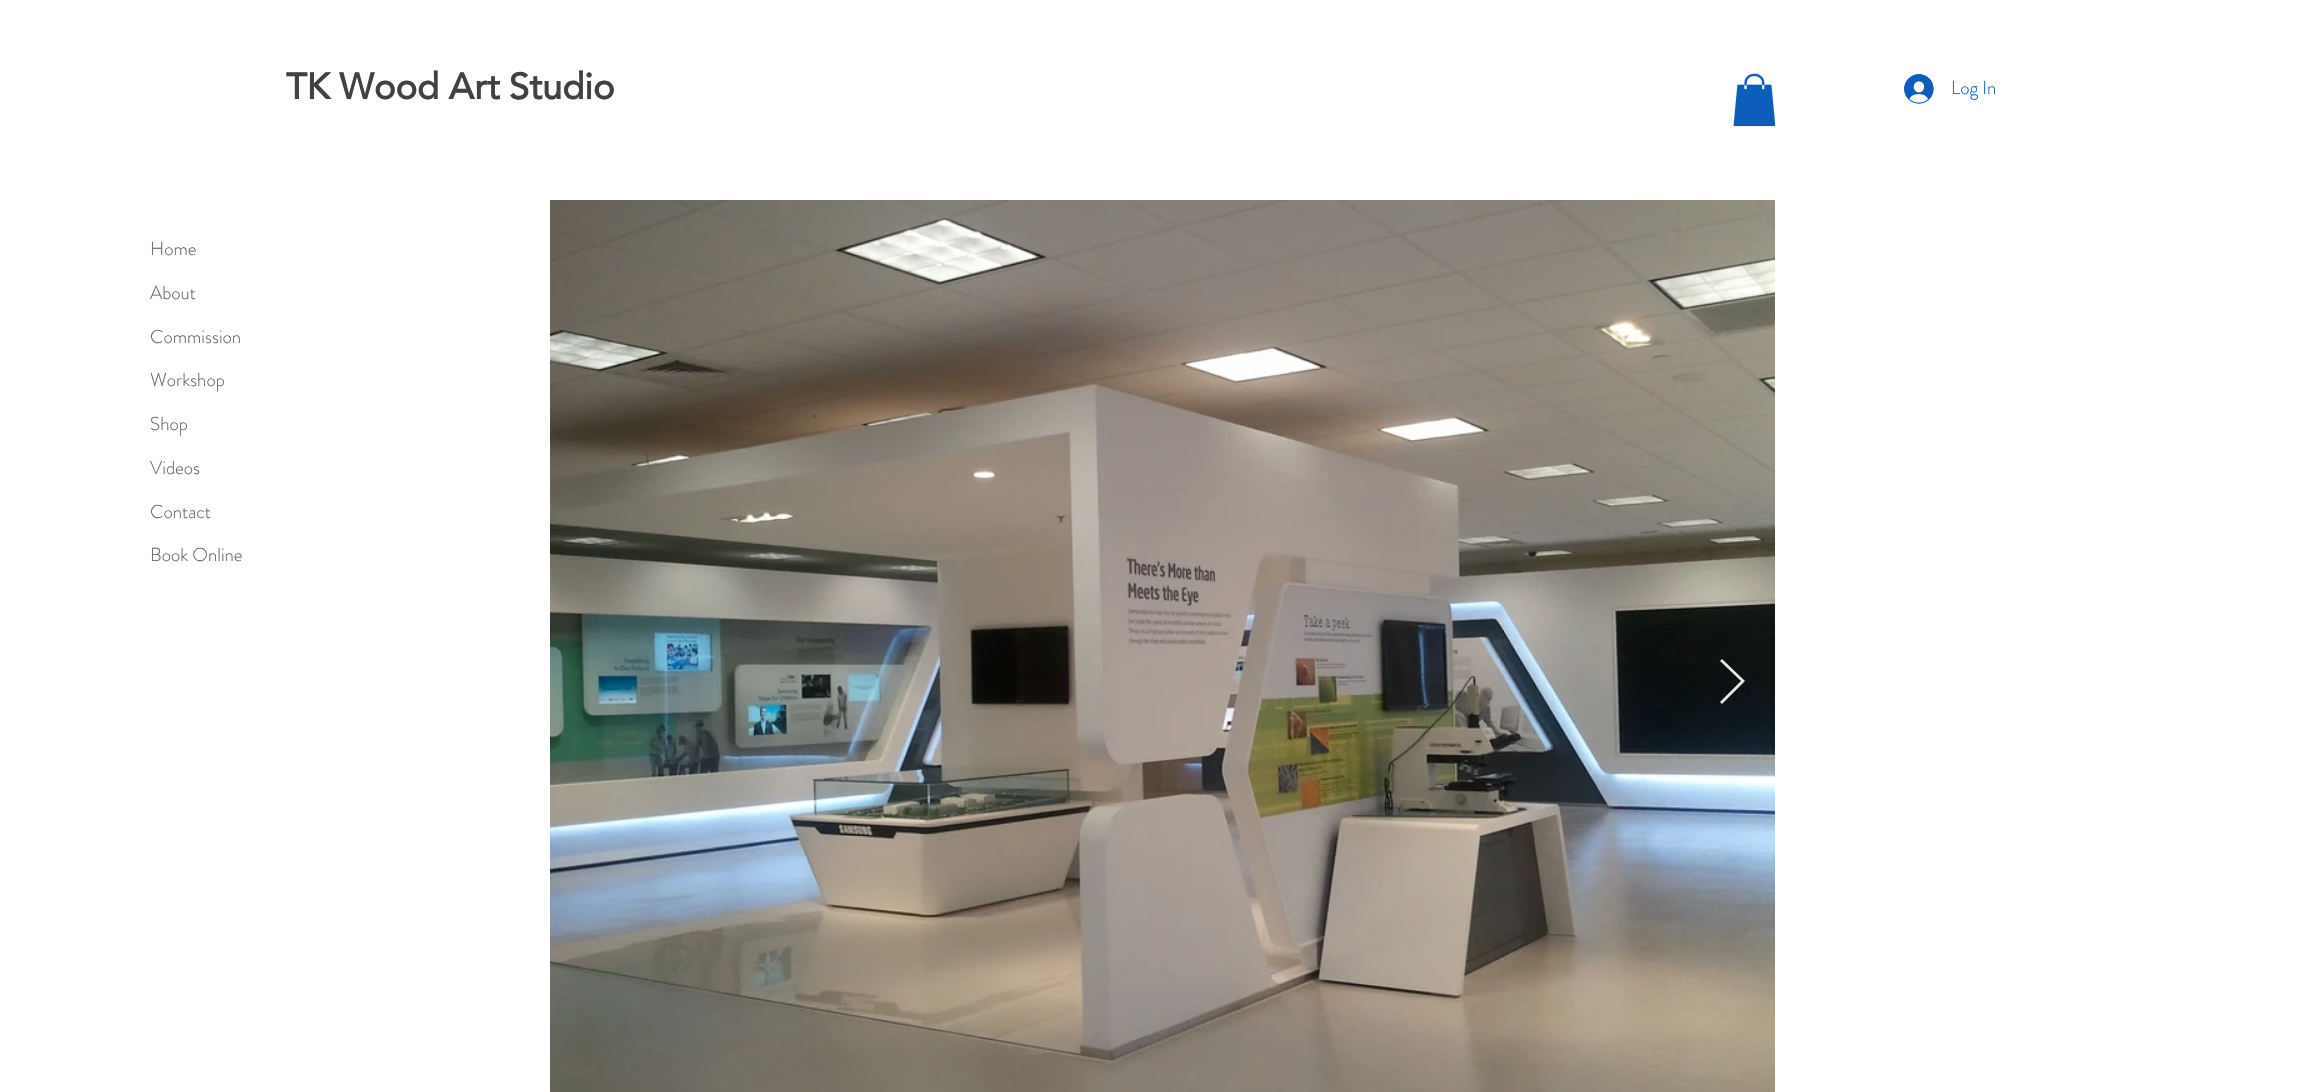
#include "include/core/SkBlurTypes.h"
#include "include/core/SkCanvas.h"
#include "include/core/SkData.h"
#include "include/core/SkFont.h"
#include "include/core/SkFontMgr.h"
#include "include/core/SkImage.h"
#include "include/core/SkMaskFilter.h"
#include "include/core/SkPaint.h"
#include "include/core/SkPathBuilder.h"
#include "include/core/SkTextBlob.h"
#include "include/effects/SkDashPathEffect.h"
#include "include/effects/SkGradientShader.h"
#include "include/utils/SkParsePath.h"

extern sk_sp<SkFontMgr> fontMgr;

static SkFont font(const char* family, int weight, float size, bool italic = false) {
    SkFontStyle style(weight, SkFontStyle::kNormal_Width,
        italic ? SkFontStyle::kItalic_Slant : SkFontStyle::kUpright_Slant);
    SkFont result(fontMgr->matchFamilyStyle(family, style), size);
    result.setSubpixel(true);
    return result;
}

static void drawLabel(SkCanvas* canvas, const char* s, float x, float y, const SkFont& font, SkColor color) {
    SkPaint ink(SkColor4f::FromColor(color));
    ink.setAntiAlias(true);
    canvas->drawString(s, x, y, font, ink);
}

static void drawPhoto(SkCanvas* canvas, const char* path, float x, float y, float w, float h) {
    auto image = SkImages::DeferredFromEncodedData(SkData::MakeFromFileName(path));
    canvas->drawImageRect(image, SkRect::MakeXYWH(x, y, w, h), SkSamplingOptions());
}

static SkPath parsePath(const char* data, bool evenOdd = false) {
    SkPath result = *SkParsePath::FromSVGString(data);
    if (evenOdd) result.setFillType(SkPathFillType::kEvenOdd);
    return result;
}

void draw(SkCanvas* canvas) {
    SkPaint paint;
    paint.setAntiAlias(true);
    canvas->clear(0xFFFFFFFF);
    SkFont font1 = font("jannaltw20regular", 700, 36.25f);
    drawLabel(canvas, "TK Wood Art Studio", 286, 99, font1, 0xFF414141);
    drawPhoto(canvas, "assets/img1.png", 1733, 73, 43, 54);
    drawPhoto(canvas, "assets/img2.png", 1904, 74, 30, 30);
    SkFont font2 = font("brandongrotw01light", 300, 18.75f);
    drawLabel(canvas, "Log In", 1951, 94, font2, 0xFF0D5EBA);
    drawLabel(canvas, "Home", 150, 255, font2, 0xFF636363);
    drawLabel(canvas, "About", 150, 299, font2, 0xFF636363);
    drawLabel(canvas, "Commission", 150, 343, font2, 0xFF636363);
    drawLabel(canvas, "Workshop", 150, 386, font2, 0xFF636363);
    drawLabel(canvas, "Shop", 150, 430, font2, 0xFF636363);
    drawLabel(canvas, "Videos", 150, 474, font2, 0xFF636363);
    drawLabel(canvas, "Contact", 150, 518, font2, 0xFF636363);
    drawLabel(canvas, "Book Online", 150, 561, font2, 0xFF636363);
    drawPhoto(canvas, "assets/img3.png", 550, 200, 1225, 892);
    paint.setColor(0xE6FFFFFF);
    canvas->drawPath(parsePath("M1720 661L1722 659L1745 681L1722 704L1720 702L1741 681Z"), paint);
}
